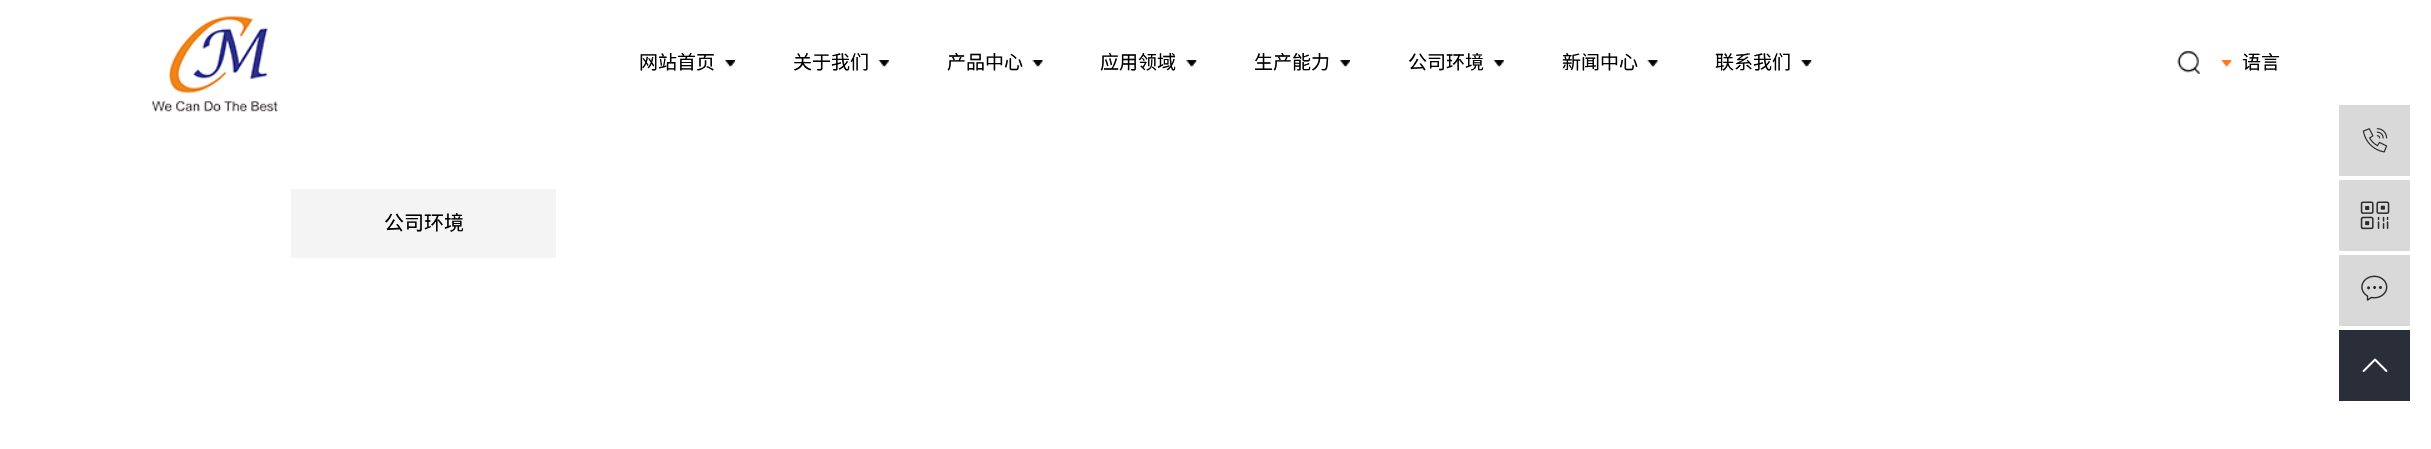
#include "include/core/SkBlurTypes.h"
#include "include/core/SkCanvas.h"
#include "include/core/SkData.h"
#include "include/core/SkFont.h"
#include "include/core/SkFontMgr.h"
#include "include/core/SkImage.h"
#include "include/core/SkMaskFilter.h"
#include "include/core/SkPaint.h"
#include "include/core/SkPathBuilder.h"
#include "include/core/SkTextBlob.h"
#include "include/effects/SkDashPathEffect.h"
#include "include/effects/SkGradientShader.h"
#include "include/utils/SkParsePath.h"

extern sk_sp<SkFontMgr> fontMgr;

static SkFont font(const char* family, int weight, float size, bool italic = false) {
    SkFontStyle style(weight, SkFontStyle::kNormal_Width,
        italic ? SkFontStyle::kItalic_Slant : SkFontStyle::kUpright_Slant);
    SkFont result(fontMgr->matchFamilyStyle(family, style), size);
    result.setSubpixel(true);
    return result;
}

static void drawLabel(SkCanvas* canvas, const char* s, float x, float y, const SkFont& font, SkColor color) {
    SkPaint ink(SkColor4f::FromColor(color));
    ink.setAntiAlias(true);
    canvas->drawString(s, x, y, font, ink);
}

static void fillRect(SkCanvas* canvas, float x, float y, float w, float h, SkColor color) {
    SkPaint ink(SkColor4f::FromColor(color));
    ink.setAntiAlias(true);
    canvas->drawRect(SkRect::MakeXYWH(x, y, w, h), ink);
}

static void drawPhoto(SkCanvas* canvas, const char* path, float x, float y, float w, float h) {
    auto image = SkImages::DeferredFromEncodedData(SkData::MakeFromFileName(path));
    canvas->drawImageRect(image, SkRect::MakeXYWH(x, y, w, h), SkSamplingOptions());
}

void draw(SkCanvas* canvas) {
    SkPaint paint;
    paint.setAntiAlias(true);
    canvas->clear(0xFFFFFFFF);
    drawPhoto(canvas, "assets/img1.png", 152, 16, 126, 96);
    drawPhoto(canvas, "assets/img2.png", 725, 60, 10, 7);
    SkFont font1 = font("Noto Sans CJK SC", 400, 19);
    drawLabel(canvas, "网站首页", 639, 69, font1, 0xFF000000);
    drawPhoto(canvas, "assets/img3.png", 878, 60, 11, 7);
    drawLabel(canvas, "关于我们", 793, 69, font1, 0xFF000000);
    drawPhoto(canvas, "assets/img4.png", 1032, 60, 11, 7);
    drawLabel(canvas, "产品中心", 947, 69, font1, 0xFF000000);
    drawPhoto(canvas, "assets/img5.png", 1186, 60, 11, 7);
    drawLabel(canvas, "应用领域", 1100, 69, font1, 0xFF000000);
    drawPhoto(canvas, "assets/img6.png", 1340, 60, 10, 7);
    drawLabel(canvas, "生产能力", 1254, 69, font1, 0xFF000000);
    drawPhoto(canvas, "assets/img7.png", 1493, 60, 11, 7);
    drawLabel(canvas, "公司环境", 1408, 69, font1, 0xFF000000);
    drawPhoto(canvas, "assets/img8.png", 1647, 60, 11, 7);
    drawLabel(canvas, "新闻中心", 1562, 69, font1, 0xFF000000);
    drawPhoto(canvas, "assets/img5.png", 1801, 60, 11, 7);
    drawLabel(canvas, "联系我们", 1715, 69, font1, 0xFF000000);
    drawPhoto(canvas, "assets/img9.png", 2177, 51, 23, 23);
    drawPhoto(canvas, "assets/img10.png", 2221, 60, 11, 7);
    drawLabel(canvas, "语言", 2242, 69, font1, 0xFF000000);
    fillRect(canvas, 291, 189, 265, 69, 0xFFF4F4F4);
    SkFont font2 = font("Noto Sans CJK SC", 400, 20);
    drawLabel(canvas, "公司环境", 384, 230, font2, 0xFF000000);
    fillRect(canvas, 2339, 105, 71, 71, 0xFFD9D9D9);
    drawPhoto(canvas, "assets/img11.png", 2362, 128, 26, 25);
    fillRect(canvas, 2339, 180, 71, 71, 0xFFD9D9D9);
    drawPhoto(canvas, "assets/img12.png", 2360, 201, 30, 29);
    fillRect(canvas, 2339, 255, 71, 71, 0xFFD9D9D9);
    drawPhoto(canvas, "assets/img13.png", 2361, 275, 27, 26);
    fillRect(canvas, 2339, 330, 71, 71, 0xFF292E39);
    drawPhoto(canvas, "assets/img14.png", 2362, 358, 26, 14);
}
